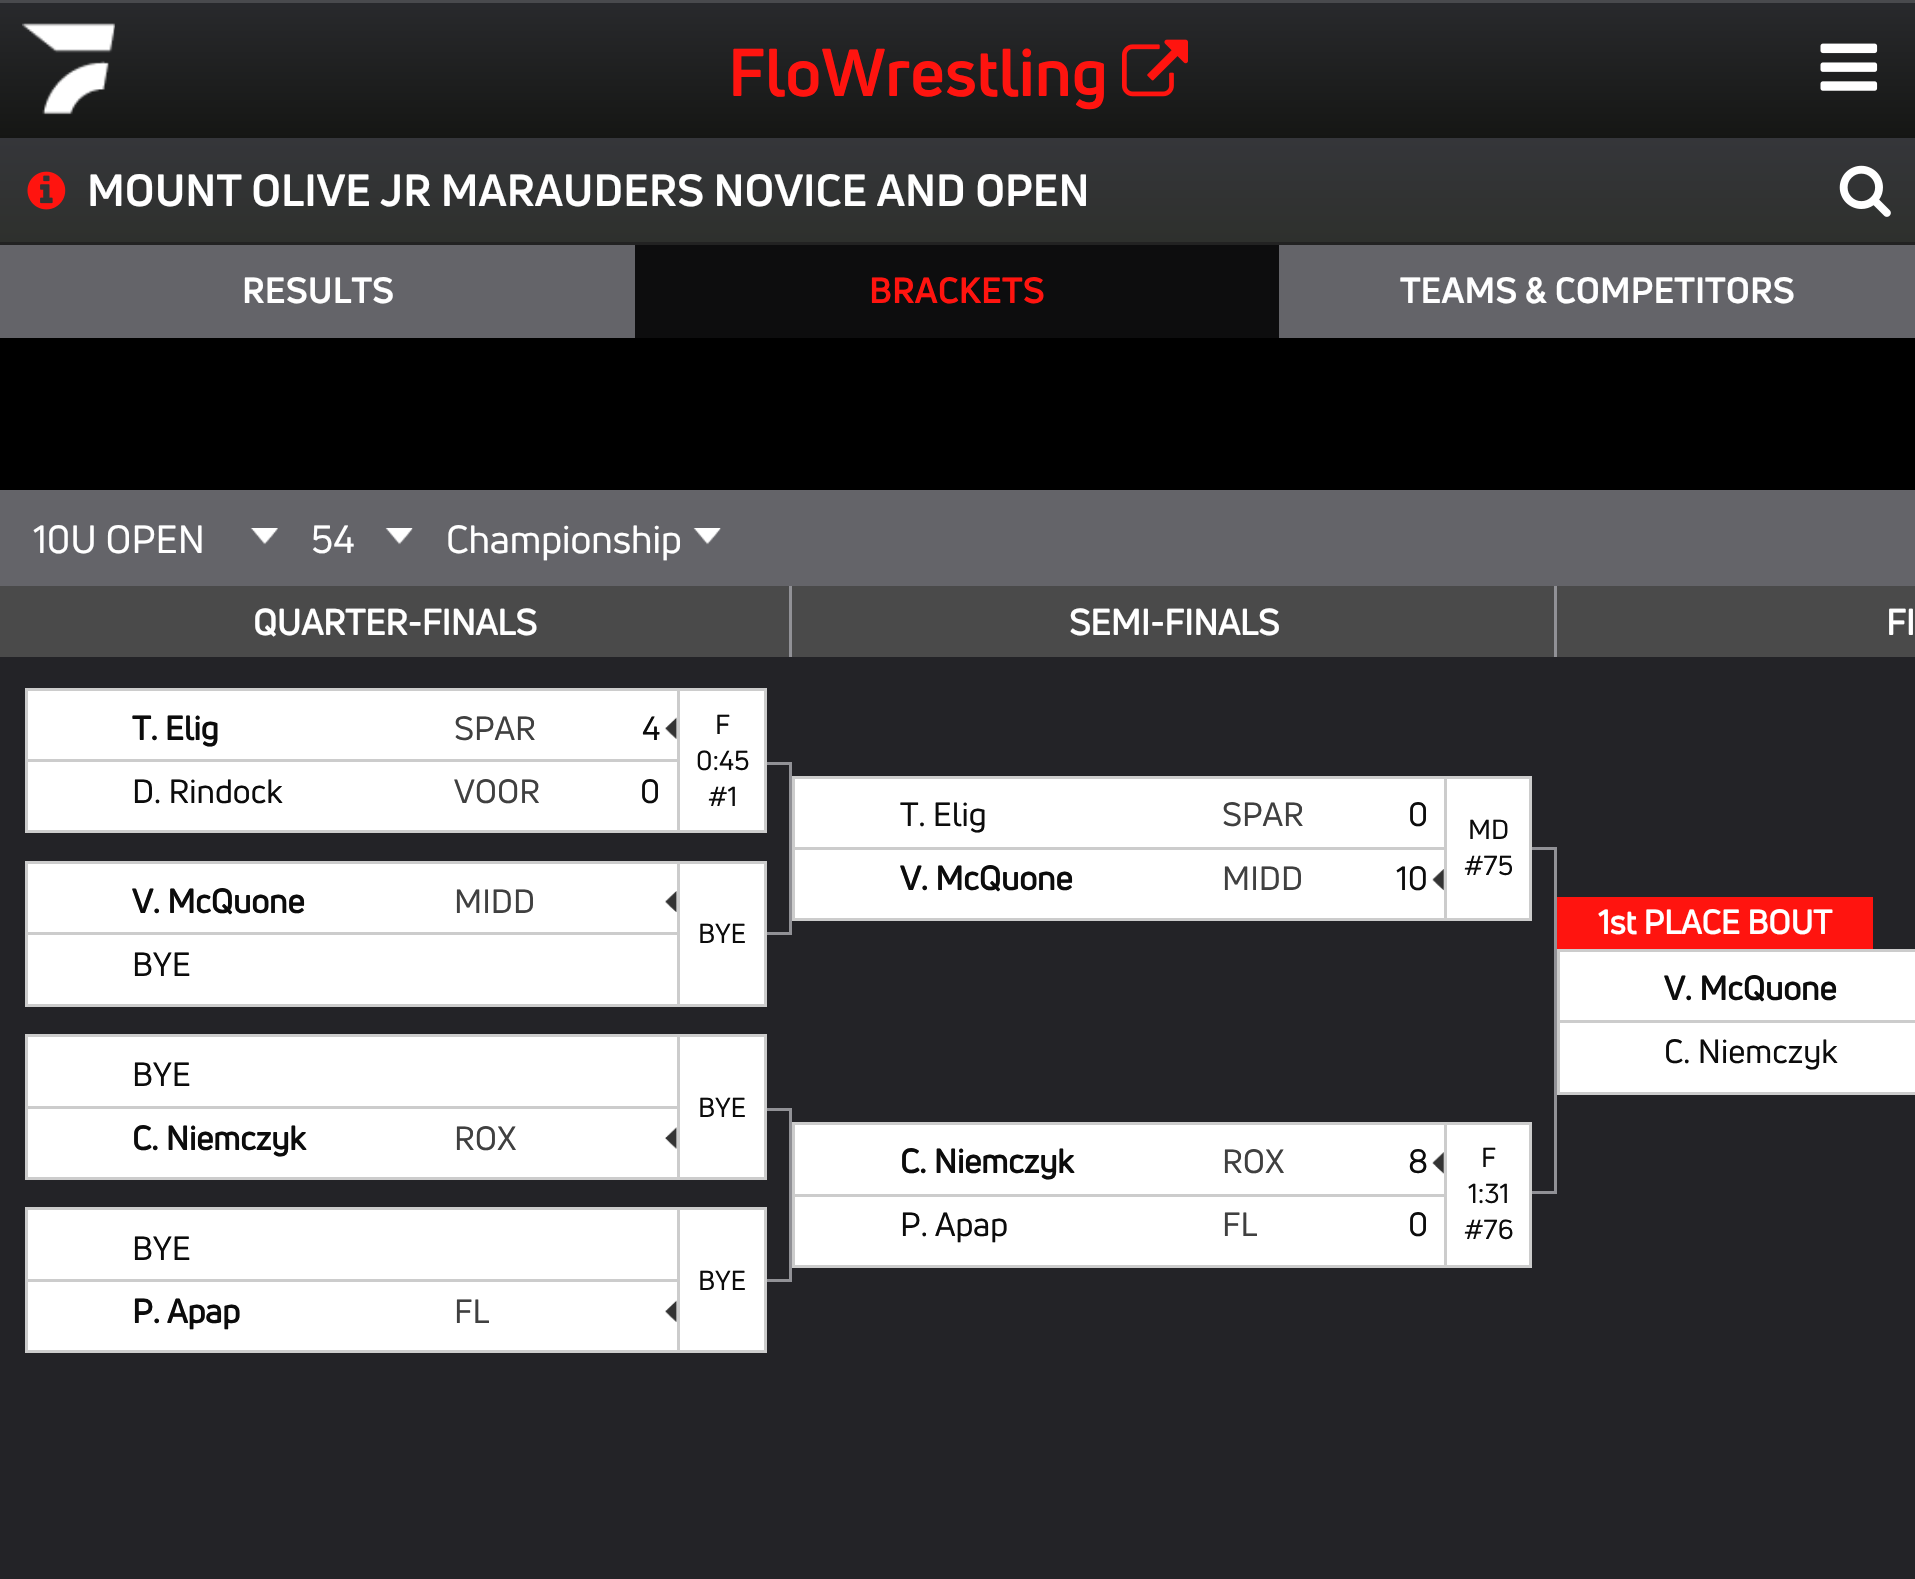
#include "include/core/SkBlurTypes.h"
#include "include/core/SkCanvas.h"
#include "include/core/SkData.h"
#include "include/core/SkFont.h"
#include "include/core/SkFontMgr.h"
#include "include/core/SkImage.h"
#include "include/core/SkMaskFilter.h"
#include "include/core/SkPaint.h"
#include "include/core/SkPathBuilder.h"
#include "include/core/SkTextBlob.h"
#include "include/effects/SkDashPathEffect.h"
#include "include/effects/SkGradientShader.h"
#include "include/utils/SkParsePath.h"

extern sk_sp<SkFontMgr> fontMgr;

static SkFont font(const char* family, int weight, float size, bool italic = false) {
    SkFontStyle style(weight, SkFontStyle::kNormal_Width,
        italic ? SkFontStyle::kItalic_Slant : SkFontStyle::kUpright_Slant);
    SkFont result(fontMgr->matchFamilyStyle(family, style), size);
    result.setSubpixel(true);
    return result;
}

static void drawLabel(SkCanvas* canvas, const char* s, float x, float y, const SkFont& font, SkColor color) {
    SkPaint ink(SkColor4f::FromColor(color));
    ink.setAntiAlias(true);
    canvas->drawString(s, x, y, font, ink);
}

static void fillRect(SkCanvas* canvas, float x, float y, float w, float h, SkColor color) {
    SkPaint ink(SkColor4f::FromColor(color));
    ink.setAntiAlias(true);
    canvas->drawRect(SkRect::MakeXYWH(x, y, w, h), ink);
}

static void drawPhoto(SkCanvas* canvas, const char* path, float x, float y, float w, float h) {
    auto image = SkImages::DeferredFromEncodedData(SkData::MakeFromFileName(path));
    canvas->drawImageRect(image, SkRect::MakeXYWH(x, y, w, h), SkSamplingOptions());
}

void draw(SkCanvas* canvas) {
    SkPaint paint;
    paint.setAntiAlias(true);
    canvas->clear(0xFF000000);
    {
        const SkColor colors[] = {0xFF292A2D, 0xFF151614};
        const float stops[] = {0, 1};
        const SkPoint ends[] = {{958, 0}, {958, 138}};
        paint.setShader(SkGradientShader::MakeLinear(ends, colors, stops, 2, SkTileMode::kClamp));
        paint.setAlpha(255);
    }
    canvas->drawRect(SkRect::MakeXYWH(0, 3, 1915, 135), paint);
    fillRect(canvas, 0, 0, 1915, 3, 0xFF494A4D);
    drawPhoto(canvas, "assets/img1.png", 22, 23, 93, 92);
    SkFont font1 = font("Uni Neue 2", 700, 66);
    drawLabel(canvas, "FloWrestling", 728, 96, font1, 0xFFFF140F);
    drawPhoto(canvas, "assets/img2.png", 1122, 39, 66, 58);
    drawPhoto(canvas, "assets/img3.png", 1820, 43, 58, 48);
    {
        const SkColor colors[] = {0xFF35363A, 0xFF2E302D};
        const float stops[] = {0, 1};
        const SkPoint ends[] = {{958, 137}, {958, 242}};
        paint.setShader(SkGradientShader::MakeLinear(ends, colors, stops, 2, SkTileMode::kClamp));
        paint.setAlpha(255);
    }
    canvas->drawRect(SkRect::MakeXYWH(0, 138, 1915, 104), paint);
    fillRect(canvas, 635, 242, 3, 96, 0xFF0D0D0E);
    fillRect(canvas, 0, 242, 1915, 3, 0xFF222222);
    drawPhoto(canvas, "assets/img4.png", 27, 171, 39, 39);
    SkFont font2 = font("Uni Neue 2", 700, 44);
    drawLabel(canvas, "MOUNT OLIVE JR MARAUDERS NOVICE AND OPEN", 87, 206, font2, 0xFFFFFFFF);
    drawPhoto(canvas, "assets/img5.png", 1839, 165, 52, 52);
    fillRect(canvas, 0, 245, 635, 93, 0xFF646469);
    SkFont font3 = font("Uni Neue 2", 700, 35.75f);
    drawLabel(canvas, "RESULTS", 242, 303, font3, 0xFFFFFFFF);
    fillRect(canvas, 638, 245, 641, 93, 0xFF0D0D0E);
    drawLabel(canvas, "BRACKETS", 869, 303, font3, 0xFFFF140F);
    fillRect(canvas, 1279, 245, 636, 93, 0xFF646469);
    drawLabel(canvas, "TEAMS & COMPETITORS", 1400, 303, font3, 0xFFFFFFFF);
    fillRect(canvas, 0, 490, 1915, 96, 0xFF646469);
    drawPhoto(canvas, "assets/img6.png", 250, 528, 28, 17);
    SkFont font4 = font("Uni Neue", 400, 38.5f);
    drawLabel(canvas, "10U OPEN", 33, 553, font4, 0xFFFFFFFF);
    drawPhoto(canvas, "assets/img7.png", 385, 528, 28, 17);
    drawLabel(canvas, "54", 311, 553, font4, 0xFFFFFFFF);
    drawPhoto(canvas, "assets/img8.png", 693, 528, 28, 17);
    drawLabel(canvas, "Championship", 446, 553, font4, 0xFFFFFFFF);
    fillRect(canvas, 0, 657, 1915, 922, 0xFF232327);
    fillRect(canvas, 0, 586, 789, 71, 0xFF4A4A4A);
    fillRect(canvas, 789, 586, 3, 71, 0xFF919196);
    SkFont font5 = font("Uni Neue", 700, 35.25f);
    drawLabel(canvas, "QUARTER-FINALS", 253, 635, font5, 0xFFFFFFFF);
    paint.setShader(nullptr);
    paint.setColor(0xFFFFFFFF);
    canvas->drawRect(SkRect::MakeXYWH(26.5f, 689.5f, 739, 142), paint);
    paint.setStroke(true);
    paint.setStrokeWidth(3);
    paint.setColor(0xFFCCCCCC);
    canvas->drawRect(SkRect::MakeXYWH(26.5f, 689.5f, 739, 142), paint);
    fillRect(canvas, 28, 759, 649, 3, 0xFFCCCCCC);
    SkFont font6 = font("Uni Neue", 700, 33);
    drawLabel(canvas, "T. Elig", 132, 740, font6, 0xFF0C0C0C);
    SkFont font7 = font("Uni Neue", 400, 33);
    drawLabel(canvas, "SPAR", 454, 740, font7, 0xFF404040);
    drawPhoto(canvas, "assets/img9.png", 665, 717, 12, 23);
    drawLabel(canvas, "4", 642, 740, font7, 0xFF0C0C0C);
    drawLabel(canvas, "D. Rindock", 132, 803, font7, 0xFF0C0C0C);
    drawLabel(canvas, "VOOR", 454, 803, font7, 0xFF404040);
    drawLabel(canvas, "0", 640, 803, font7, 0xFF0C0C0C);
    fillRect(canvas, 677, 690, 3, 141, 0xFFCCCCCC);
    SkFont font8 = font("Uni Neue", 400, 27);
    drawLabel(canvas, "F", 715, 734, font8, 0xFF0C0C0C);
    drawLabel(canvas, "0:45", 696, 770, font8, 0xFF0C0C0C);
    drawLabel(canvas, "#1", 708, 806, font8, 0xFF0C0C0C);
    fillRect(canvas, 767, 762, 25, 3, 0xFF919196);
    fillRect(canvas, 789, 762, 3, 173, 0xFF919196);
    fillRect(canvas, 767, 932, 25, 3, 0xFF919196);
    paint.setStroke(false);
    paint.setColor(0xFFFFFFFF);
    canvas->drawRect(SkRect::MakeXYWH(26.5f, 862.5f, 739, 143), paint);
    paint.setStroke(true);
    paint.setColor(0xFFCCCCCC);
    canvas->drawRect(SkRect::MakeXYWH(26.5f, 862.5f, 739, 143), paint);
    fillRect(canvas, 28, 932, 649, 3, 0xFFCCCCCC);
    drawLabel(canvas, "V. McQuone", 132, 913, font6, 0xFF0C0C0C);
    drawLabel(canvas, "MIDD", 454, 913, font7, 0xFF404040);
    drawPhoto(canvas, "assets/img10.png", 665, 891, 12, 22);
    drawLabel(canvas, "BYE", 132, 976, font7, 0xFF0C0C0C);
    fillRect(canvas, 677, 864, 3, 140, 0xFFCCCCCC);
    drawLabel(canvas, "BYE", 698, 943, font8, 0xFF0C0C0C);
    paint.setStroke(false);
    paint.setColor(0xFFFFFFFF);
    canvas->drawRect(SkRect::MakeXYWH(26.5f, 1035.5f, 739, 143), paint);
    paint.setStroke(true);
    paint.setColor(0xFFCCCCCC);
    canvas->drawRect(SkRect::MakeXYWH(26.5f, 1035.5f, 739, 143), paint);
    fillRect(canvas, 28, 1106, 649, 3, 0xFFCCCCCC);
    drawLabel(canvas, "BYE", 132, 1086, font7, 0xFF0C0C0C);
    drawLabel(canvas, "C. Niemczyk", 132, 1150, font6, 0xFF0C0C0C);
    drawLabel(canvas, "ROX", 454, 1150, font7, 0xFF404040);
    drawPhoto(canvas, "assets/img11.png", 665, 1127, 12, 22);
    fillRect(canvas, 677, 1037, 3, 140, 0xFFCCCCCC);
    drawLabel(canvas, "BYE", 698, 1117, font8, 0xFF0C0C0C);
    fillRect(canvas, 767, 1108, 25, 3, 0xFF919196);
    fillRect(canvas, 789, 1108, 3, 174, 0xFF919196);
    fillRect(canvas, 767, 1279, 25, 3, 0xFF919196);
    paint.setStroke(false);
    paint.setColor(0xFFFFFFFF);
    canvas->drawRect(SkRect::MakeXYWH(26.5f, 1208.5f, 739, 143), paint);
    paint.setStroke(true);
    paint.setColor(0xFFCCCCCC);
    canvas->drawRect(SkRect::MakeXYWH(26.5f, 1208.5f, 739, 143), paint);
    fillRect(canvas, 28, 1279, 649, 3, 0xFFCCCCCC);
    drawLabel(canvas, "BYE", 132, 1260, font7, 0xFF0C0C0C);
    drawLabel(canvas, "P. Apap", 132, 1323, font6, 0xFF0C0C0C);
    drawLabel(canvas, "FL", 454, 1323, font7, 0xFF404040);
    drawPhoto(canvas, "assets/img12.png", 665, 1300, 12, 23);
    fillRect(canvas, 677, 1210, 3, 140, 0xFFCCCCCC);
    drawLabel(canvas, "BYE", 698, 1290, font8, 0xFF0C0C0C);
    fillRect(canvas, 792, 586, 762, 71, 0xFF4A4A4A);
    fillRect(canvas, 1554, 586, 3, 71, 0xFF919196);
    drawLabel(canvas, "SEMI-FINALS", 1069, 635, font5, 0xFFFFFFFF);
    paint.setStroke(false);
    paint.setColor(0xFFFFFFFF);
    canvas->drawRect(SkRect::MakeXYWH(793.5f, 777.5f, 737, 142), paint);
    paint.setStroke(true);
    paint.setColor(0xFFCCCCCC);
    canvas->drawRect(SkRect::MakeXYWH(793.5f, 777.5f, 737, 142), paint);
    fillRect(canvas, 795, 847, 649, 3, 0xFFCCCCCC);
    drawLabel(canvas, "T. Elig", 900, 826, font7, 0xFF0C0C0C);
    drawLabel(canvas, "SPAR", 1222, 826, font7, 0xFF404040);
    drawLabel(canvas, "0", 1408, 826, font7, 0xFF0C0C0C);
    drawLabel(canvas, "V. McQuone", 900, 890, font6, 0xFF0C0C0C);
    drawLabel(canvas, "MIDD", 1222, 890, font7, 0xFF404040);
    drawPhoto(canvas, "assets/img13.png", 1432, 869, 12, 22);
    drawLabel(canvas, "10", 1396, 890, font7, 0xFF0C0C0C);
    fillRect(canvas, 1444, 778, 3, 141, 0xFFCCCCCC);
    drawLabel(canvas, "MD", 1468, 839, font8, 0xFF0C0C0C);
    drawLabel(canvas, "#75", 1464, 875, font8, 0xFF0C0C0C);
    fillRect(canvas, 1532, 847, 25, 3, 0xFF919196);
    fillRect(canvas, 1554, 847, 3, 347, 0xFF919196);
    fillRect(canvas, 1532, 1191, 25, 3, 0xFF919196);
    paint.setStroke(false);
    paint.setColor(0xFFFFFFFF);
    canvas->drawRect(SkRect::MakeXYWH(793.5f, 1123.5f, 737, 143), paint);
    paint.setStroke(true);
    paint.setColor(0xFFCCCCCC);
    canvas->drawRect(SkRect::MakeXYWH(793.5f, 1123.5f, 737, 143), paint);
    fillRect(canvas, 795, 1194, 649, 3, 0xFFCCCCCC);
    drawLabel(canvas, "C. Niemczyk", 900, 1173, font6, 0xFF0C0C0C);
    drawLabel(canvas, "ROX", 1222, 1173, font7, 0xFF404040);
    drawPhoto(canvas, "assets/img14.png", 1432, 1152, 12, 22);
    drawLabel(canvas, "8", 1408, 1173, font7, 0xFF0C0C0C);
    drawLabel(canvas, "P. Apap", 900, 1236, font7, 0xFF0C0C0C);
    drawLabel(canvas, "FL", 1222, 1236, font7, 0xFF404040);
    drawLabel(canvas, "0", 1408, 1236, font7, 0xFF0C0C0C);
    fillRect(canvas, 1444, 1125, 3, 140, 0xFFCCCCCC);
    drawLabel(canvas, "F", 1481, 1167, font8, 0xFF0C0C0C);
    drawLabel(canvas, "1:31", 1468, 1203, font8, 0xFF0C0C0C);
    drawLabel(canvas, "#76", 1464, 1239, font8, 0xFF0C0C0C);
    fillRect(canvas, 1557, 586, 358, 71, 0xFF4A4A4A);
    drawLabel(canvas, "FI", 1886, 635, font5, 0xFFFFFFFF);
    paint.setStroke(false);
    paint.setColor(0xFFFFFFFF);
    canvas->drawRect(SkRect::MakeXYWH(1558.5f, 950.5f, 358, 143), paint);
    paint.setStroke(true);
    paint.setColor(0xFFCCCCCC);
    canvas->drawRect(SkRect::MakeXYWH(1558.5f, 950.5f, 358, 143), paint);
    fillRect(canvas, 1557, 897, 316, 52, 0xFFFF140F);
    drawLabel(canvas, "1st PLACE BOUT", 1598, 934, font6, 0xFFFFFFFF);
    fillRect(canvas, 1559, 1020, 356, 3, 0xFFCCCCCC);
    drawLabel(canvas, "V. McQuone", 1664, 1000, font6, 0xFF0C0C0C);
    drawLabel(canvas, "C. Niemczyk", 1664, 1063, font7, 0xFF0C0C0C);
}
